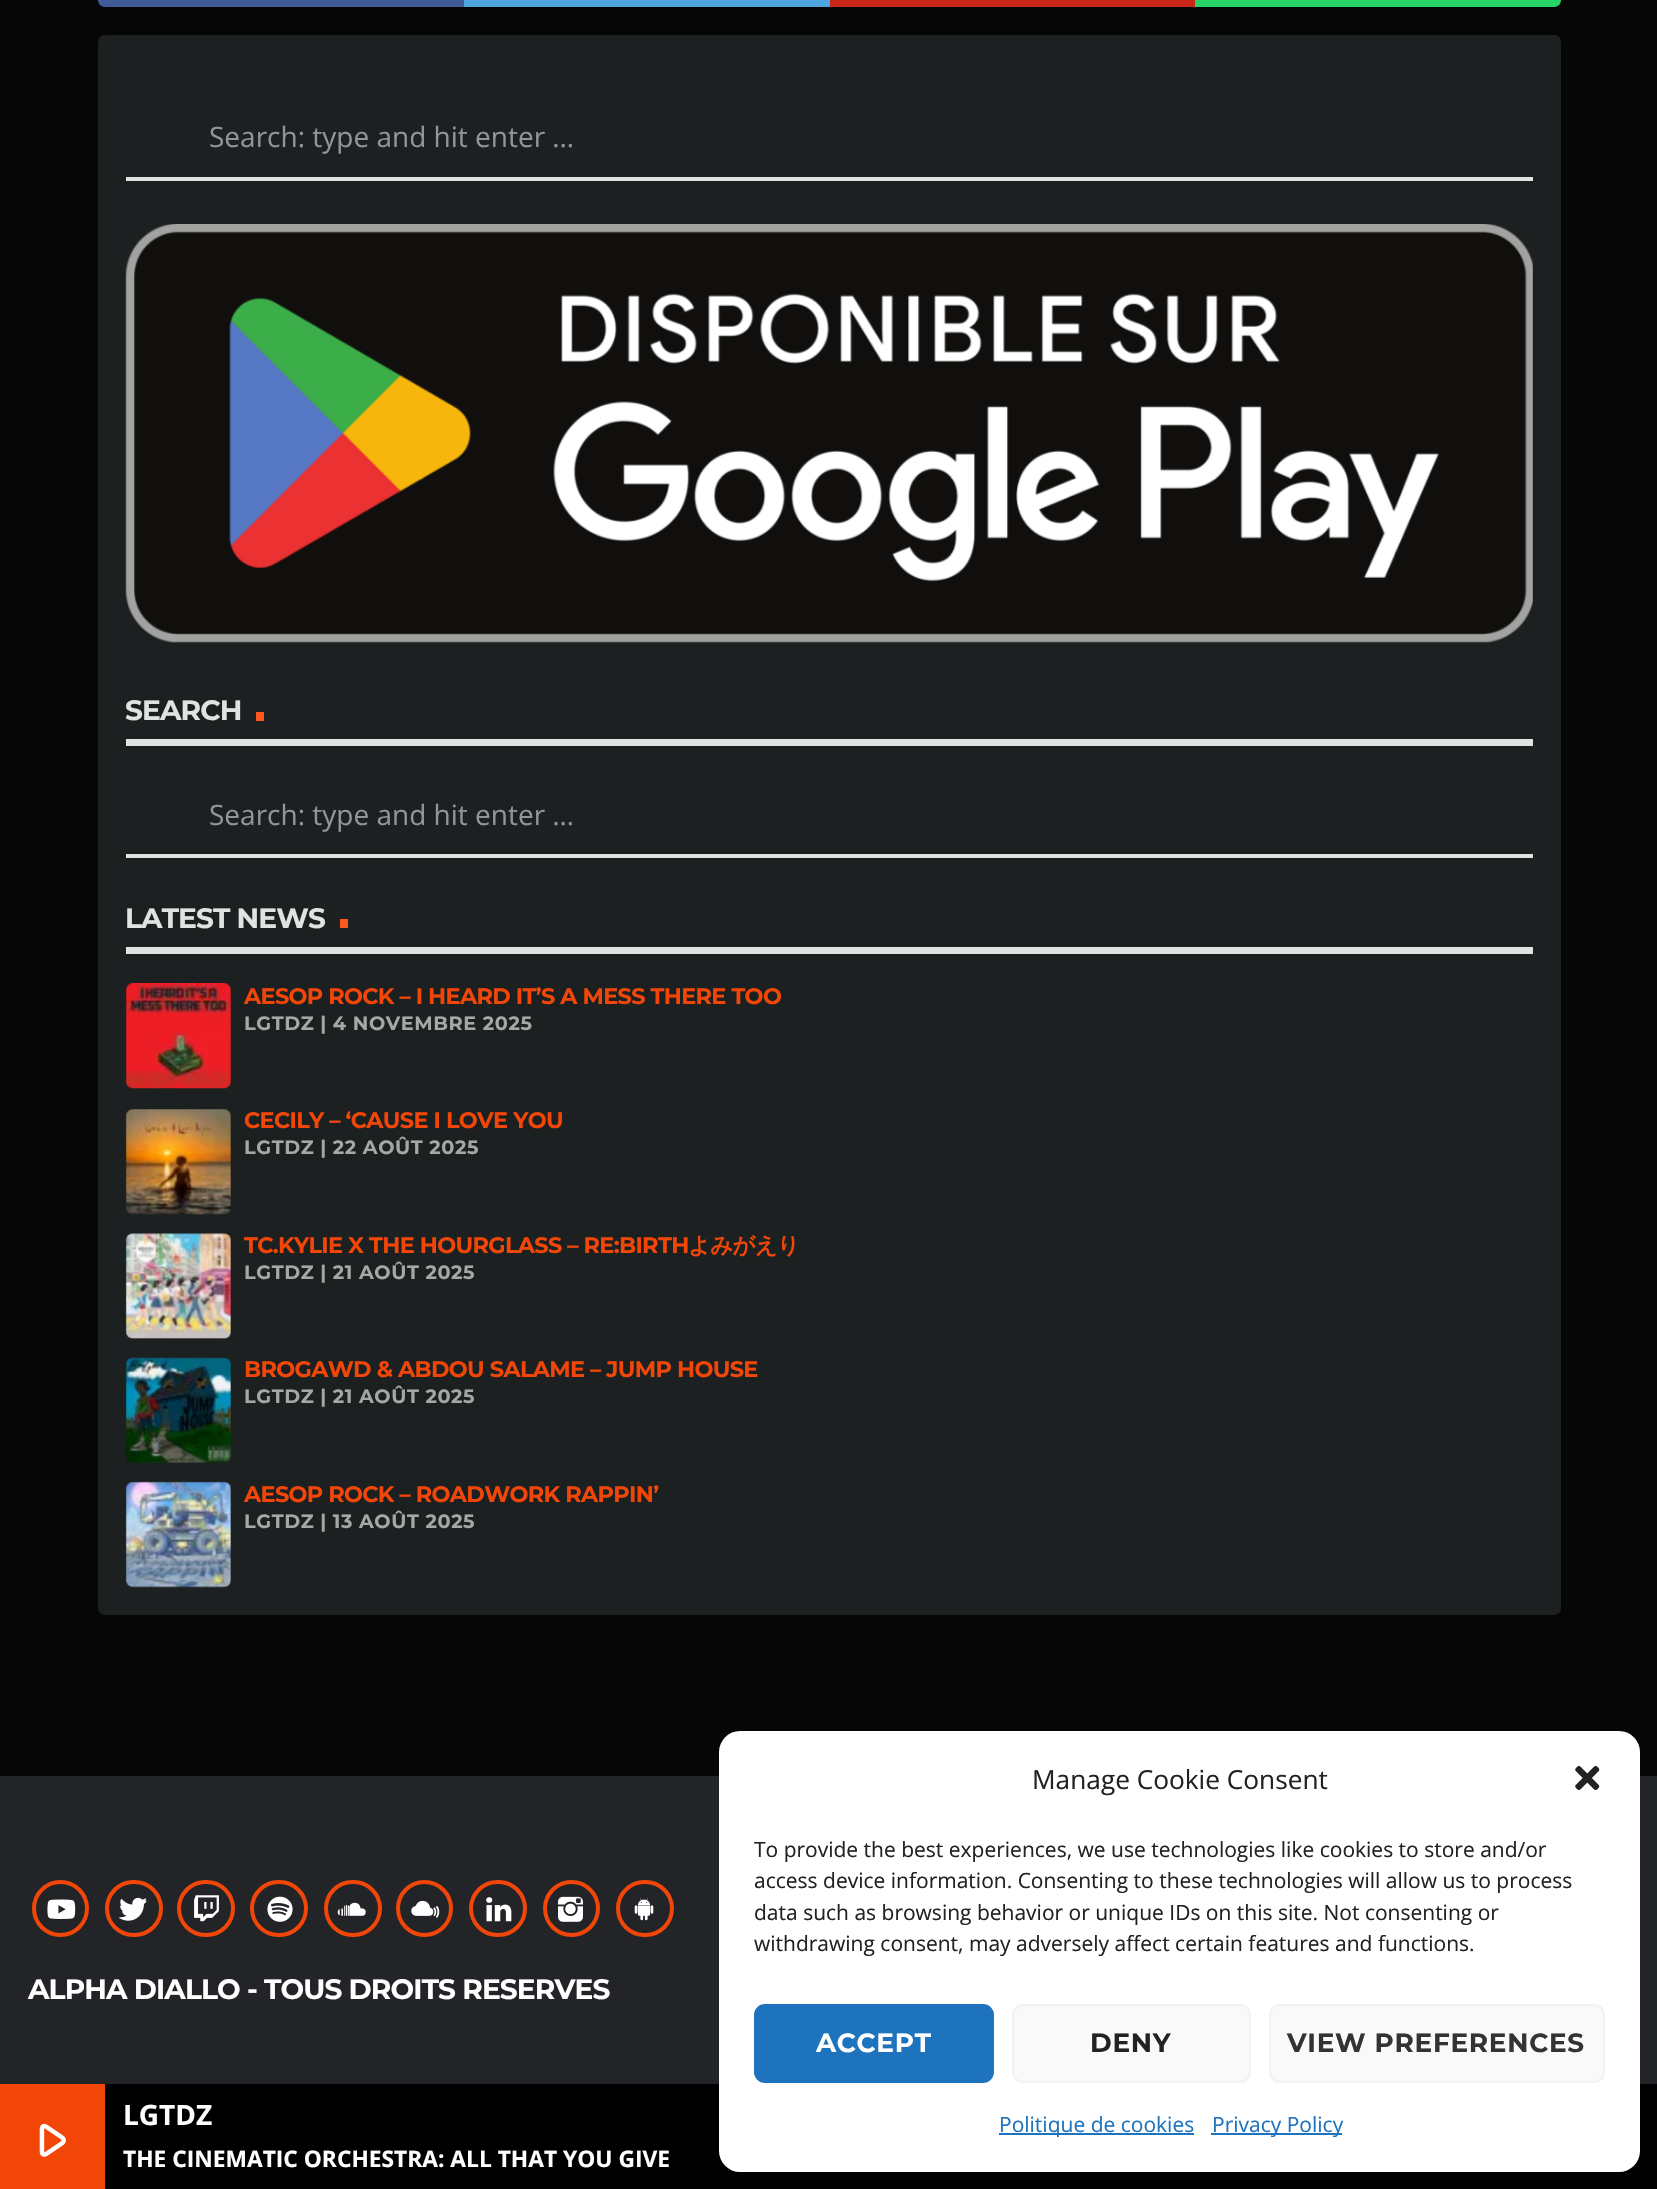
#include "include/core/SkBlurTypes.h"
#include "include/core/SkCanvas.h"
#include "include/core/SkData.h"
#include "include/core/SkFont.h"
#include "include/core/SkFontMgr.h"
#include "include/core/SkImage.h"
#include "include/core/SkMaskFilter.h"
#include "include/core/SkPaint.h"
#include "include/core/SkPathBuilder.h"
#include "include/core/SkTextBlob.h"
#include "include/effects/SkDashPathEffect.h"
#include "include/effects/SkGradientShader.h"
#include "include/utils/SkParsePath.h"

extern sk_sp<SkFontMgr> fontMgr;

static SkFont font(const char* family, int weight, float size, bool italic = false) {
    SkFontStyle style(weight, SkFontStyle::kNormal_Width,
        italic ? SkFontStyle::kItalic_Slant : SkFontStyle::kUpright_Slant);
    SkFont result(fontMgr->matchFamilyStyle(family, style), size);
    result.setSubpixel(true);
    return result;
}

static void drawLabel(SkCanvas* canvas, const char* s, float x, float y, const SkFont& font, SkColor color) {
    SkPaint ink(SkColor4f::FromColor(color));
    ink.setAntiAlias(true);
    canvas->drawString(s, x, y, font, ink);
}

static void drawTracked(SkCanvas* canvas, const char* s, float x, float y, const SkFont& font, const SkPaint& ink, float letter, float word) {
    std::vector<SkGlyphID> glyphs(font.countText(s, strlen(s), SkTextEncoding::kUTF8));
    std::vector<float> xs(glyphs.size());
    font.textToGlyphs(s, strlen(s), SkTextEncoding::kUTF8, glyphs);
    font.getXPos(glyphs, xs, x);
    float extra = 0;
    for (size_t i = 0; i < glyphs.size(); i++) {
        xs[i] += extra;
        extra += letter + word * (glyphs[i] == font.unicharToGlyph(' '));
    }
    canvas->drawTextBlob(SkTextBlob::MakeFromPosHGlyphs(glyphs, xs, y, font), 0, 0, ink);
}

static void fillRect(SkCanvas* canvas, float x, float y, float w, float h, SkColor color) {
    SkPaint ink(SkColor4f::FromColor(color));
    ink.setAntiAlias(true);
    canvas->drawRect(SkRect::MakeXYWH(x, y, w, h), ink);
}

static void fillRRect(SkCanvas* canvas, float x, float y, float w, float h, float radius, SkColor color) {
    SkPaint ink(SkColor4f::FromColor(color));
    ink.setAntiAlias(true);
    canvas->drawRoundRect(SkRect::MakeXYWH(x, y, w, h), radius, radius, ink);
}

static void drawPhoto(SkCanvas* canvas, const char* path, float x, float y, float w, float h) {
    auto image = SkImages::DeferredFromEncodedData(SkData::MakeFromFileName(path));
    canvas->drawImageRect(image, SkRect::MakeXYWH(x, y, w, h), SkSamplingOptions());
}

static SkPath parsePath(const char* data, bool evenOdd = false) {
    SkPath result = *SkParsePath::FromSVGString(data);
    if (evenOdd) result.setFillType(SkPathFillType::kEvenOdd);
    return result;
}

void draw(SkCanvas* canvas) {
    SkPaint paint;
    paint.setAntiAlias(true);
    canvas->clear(0xFF060606);
    paint.setColor(0xFF3E5B98);
    canvas->drawPath(parsePath("M105-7H464V7H105C101 7 98 4 98 0C98-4 101-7 105-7Z"), paint);
    fillRect(canvas, 464, 0, 366, 7, 0xFF4DA7DE);
    fillRect(canvas, 830, 0, 365, 7, 0xFFC92619);
    paint.setColor(0xFF25D366);
    canvas->drawPath(parsePath("M1195-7H1554C1558-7 1561-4 1561 0C1561 4 1558 7 1554 7H1195Z"), paint);
    fillRRect(canvas, 98, 35, 1463, 1580, 7, 0xFF1C2020);
    fillRect(canvas, 126, 177, 1407, 4, 0xFFE1E2E2);
    SkFont font1 = font("Open Sans", 400, 28);
    drawLabel(canvas, "Search: type and hit enter …", 209, 147, font1, 0xFF929595);
    drawPhoto(canvas, "assets/img1.png", 125, 224, 1408, 419);
    fillRect(canvas, 126, 739, 1407, 7, 0xFFE1E2E2);
    SkFont font2 = font("Montserrat", 700, 28);
    paint.setColor(0xFFE1E2E2);
    drawTracked(canvas, "SEARCH", 125, 720, font2, paint, -0.85f, 0);
    fillRect(canvas, 256, 712, 8, 9, 0xFFFA581E);
    fillRect(canvas, 126, 854, 1407, 4, 0xFFE1E2E2);
    drawLabel(canvas, "Search: type and hit enter …", 209, 825, font1, 0xFF929595);
    fillRect(canvas, 126, 947, 1407, 7, 0xFFE1E2E2);
    drawTracked(canvas, "LATEST NEWS", 125, 928, font2, paint, -0.85f, 0);
    fillRect(canvas, 340, 919, 8, 9, 0xFFFA581E);
    drawPhoto(canvas, "assets/img2.png", 125, 983, 106, 106);
    SkFont font3 = font("Montserrat", 700, 22.4f);
    paint.setColor(0xFFF14608);
    drawTracked(canvas, "AESOP ROCK – I HEARD IT’S A MESS THERE TOO", 244, 1004, font3, paint, -0.65f, 0);
    SkFont font4 = font("Montserrat", 700, 19.25f);
    paint.setColor(0xFFA6A8A8);
    drawTracked(canvas, "LGTDZ | 4 NOVEMBRE 2025", 244, 1030, font4, paint, 0.6f, 0);
    drawPhoto(canvas, "assets/img3.png", 125, 1109, 106, 106);
    paint.setColor(0xFFF14608);
    drawTracked(canvas, "CECILY – ‘CAUSE I LOVE YOU", 244, 1128, font3, paint, -0.65f, 0);
    paint.setColor(0xFFA6A8A8);
    drawTracked(canvas, "LGTDZ | 22 AOÛT 2025", 244, 1154, font4, paint, 0.6f, 0);
    drawPhoto(canvas, "assets/img4.png", 125, 1233, 106, 106);
    paint.setColor(0xFFF14608);
    drawTracked(canvas, "TC.KYLIE X THE HOURGLASS – RE:BIRTH", 244, 1253, font3, paint, -0.65f, 0);
    SkFont font5 = font("WenQuanYi Zen Hei", 700, 22.4f);
    drawTracked(canvas, "よみがえり", 688, 1253, font5, paint, -0.65f, 0);
    paint.setColor(0xFFA6A8A8);
    drawTracked(canvas, "LGTDZ | 21 AOÛT 2025", 244, 1279, font4, paint, 0.6f, 0);
    drawPhoto(canvas, "assets/img5.png", 125, 1357, 106, 107);
    paint.setColor(0xFFF14608);
    drawTracked(canvas, "BROGAWD & ABDOU SALAME – JUMP HOUSE", 244, 1377, font3, paint, -0.65f, 0);
    paint.setColor(0xFFA6A8A8);
    drawTracked(canvas, "LGTDZ | 21 AOÛT 2025", 244, 1403, font4, paint, 0.6f, 0);
    drawPhoto(canvas, "assets/img6.png", 125, 1481, 106, 107);
    paint.setColor(0xFFF14608);
    drawTracked(canvas, "AESOP ROCK – ROADWORK RAPPIN’", 244, 1502, font3, paint, -0.65f, 0);
    paint.setColor(0xFFA6A8A8);
    drawTracked(canvas, "LGTDZ | 13 AOÛT 2025", 244, 1528, font4, paint, 0.6f, 0);
    fillRect(canvas, 0, 1776, 1657, 308, 0xFF232428);
    paint.setStroke(true);
    paint.setStrokeWidth(4);
    paint.setColor(0xFFF14608);
    canvas->drawCircle(60.5f, 1908.5f, 26.5f, paint);
    drawPhoto(canvas, "assets/img7.png", 47, 1899, 29, 20);
    canvas->drawRoundRect(SkRect::MakeXYWH(107, 1882, 54, 53), 26.5f, 26.5f, paint);
    drawPhoto(canvas, "assets/img8.png", 119, 1897, 28, 24);
    canvas->drawRoundRect(SkRect::MakeXYWH(179, 1882, 54, 53), 26.5f, 26.5f, paint);
    drawPhoto(canvas, "assets/img9.png", 194, 1895, 25, 27);
    canvas->drawRoundRect(SkRect::MakeXYWH(252, 1882, 54, 53), 26.5f, 26.5f, paint);
    drawPhoto(canvas, "assets/img10.png", 267, 1896, 26, 26);
    canvas->drawRoundRect(SkRect::MakeXYWH(326, 1882, 54, 53), 26.5f, 26.5f, paint);
    drawPhoto(canvas, "assets/img11.png", 337, 1902, 29, 14);
    canvas->drawCircle(424.5f, 1908.5f, 26.5f, paint);
    drawPhoto(canvas, "assets/img12.png", 411, 1900, 29, 18);
    canvas->drawRoundRect(SkRect::MakeXYWH(471, 1882, 54, 53), 26.5f, 26.5f, paint);
    drawPhoto(canvas, "assets/img13.png", 486, 1897, 26, 25);
    canvas->drawCircle(571.5f, 1908.5f, 26.5f, paint);
    drawPhoto(canvas, "assets/img14.png", 558, 1896, 25, 26);
    canvas->drawRoundRect(SkRect::MakeXYWH(618, 1882, 54, 53), 26.5f, 26.5f, paint);
    drawPhoto(canvas, "assets/img15.png", 634, 1898, 20, 23);
    paint.setStroke(false);
    paint.setColor(0xFFFFFFFF);
    drawTracked(canvas, "ALPHA DIALLO - TOUS DROITS RESERVES", 28, 1999, font2, paint, -0.85f, 0);
    fillRect(canvas, 105, 2084, 1552, 105, 0xFF000000);
    fillRRect(canvas, 719, 1731, 921, 441, 21, 0xFFFFFFFF);
    SkFont font6 = font("Open Sans", 400, 26.25f);
    drawLabel(canvas, "Manage Cookie Consent", 1032, 1789, font6, 0xFF222222);
    drawPhoto(canvas, "assets/img16.png", 1575, 1766, 25, 24);
    SkFont font7 = font("Open Sans", 400, 21);
    drawLabel(canvas, "To provide the best experiences, we use technologies like cookies to store and/or", 754, 1857, font7, 0xFF222222);
    drawLabel(canvas, "access device information. Consenting to these technologies will allow us to process", 754, 1888, font7, 0xFF222222);
    drawLabel(canvas, "data such as browsing behavior or unique IDs on this site. Not consenting or", 754, 1920, font7, 0xFF222222);
    drawLabel(canvas, "withdrawing consent, may adversely affect certain features and functions.", 754, 1951, font7, 0xFF222222);
    paint.setColor(0xFF1E73BE);
    canvas->drawRoundRect(SkRect::MakeXYWH(755, 2005, 238, 77), 10, 10, paint);
    paint.setStroke(true);
    paint.setStrokeWidth(2);
    canvas->drawRoundRect(SkRect::MakeXYWH(755, 2005, 238, 77), 10, 10, paint);
    SkFont font8 = font("Montserrat", 700, 26.25f);
    paint.setStroke(false);
    paint.setColor(0xFFFFFFFF);
    drawTracked(canvas, "ACCEPT", 816, 2052, font8, paint, 0.75f, 0);
    paint.setColor(0xFFF9F9F9);
    canvas->drawRoundRect(SkRect::MakeXYWH(1013, 2005, 237, 77), 10, 10, paint);
    paint.setStroke(true);
    paint.setColor(0xFFF2F2F2);
    canvas->drawRoundRect(SkRect::MakeXYWH(1013, 2005, 237, 77), 10, 10, paint);
    paint.setStroke(false);
    paint.setColor(0xFF222222);
    drawTracked(canvas, "DENY", 1090, 2052, font8, paint, 0.75f, 0);
    paint.setColor(0xFFF9F9F9);
    canvas->drawRoundRect(SkRect::MakeXYWH(1270, 2005, 334, 77), 10, 10, paint);
    paint.setStroke(true);
    paint.setColor(0xFFF2F2F2);
    canvas->drawRoundRect(SkRect::MakeXYWH(1270, 2005, 334, 77), 10, 10, paint);
    paint.setStroke(false);
    paint.setColor(0xFF333333);
    drawTracked(canvas, "VIEW PREFERENCES", 1287, 2052, font8, paint, 0.75f, 0);
    fillRect(canvas, 999, 2133, 195, 2, 0xFF1E73BE);
    drawLabel(canvas, "Politique de cookies", 999, 2132, font7, 0xFF1E73BE);
    fillRect(canvas, 1211, 2133, 131, 2, 0xFF1E73BE);
    drawLabel(canvas, "Privacy Policy", 1212, 2132, font7, 0xFF1E73BE);
    fillRect(canvas, 0, 2084, 105, 105, 0xFFF14608);
    drawPhoto(canvas, "assets/img17.png", 39, 2123, 27, 34);
    SkFont font9 = font("Open Sans", 700, 28);
    drawLabel(canvas, "LGTDZ", 123, 2125, font9, 0xFFFFFFFF);
    SkFont font10 = font("Open Sans", 700, 22.75f);
    drawLabel(canvas, "THE CINEMATIC ORCHESTRA: ALL THAT YOU GIVE", 123, 2167, font10, 0xFFFFFFFF);
}
